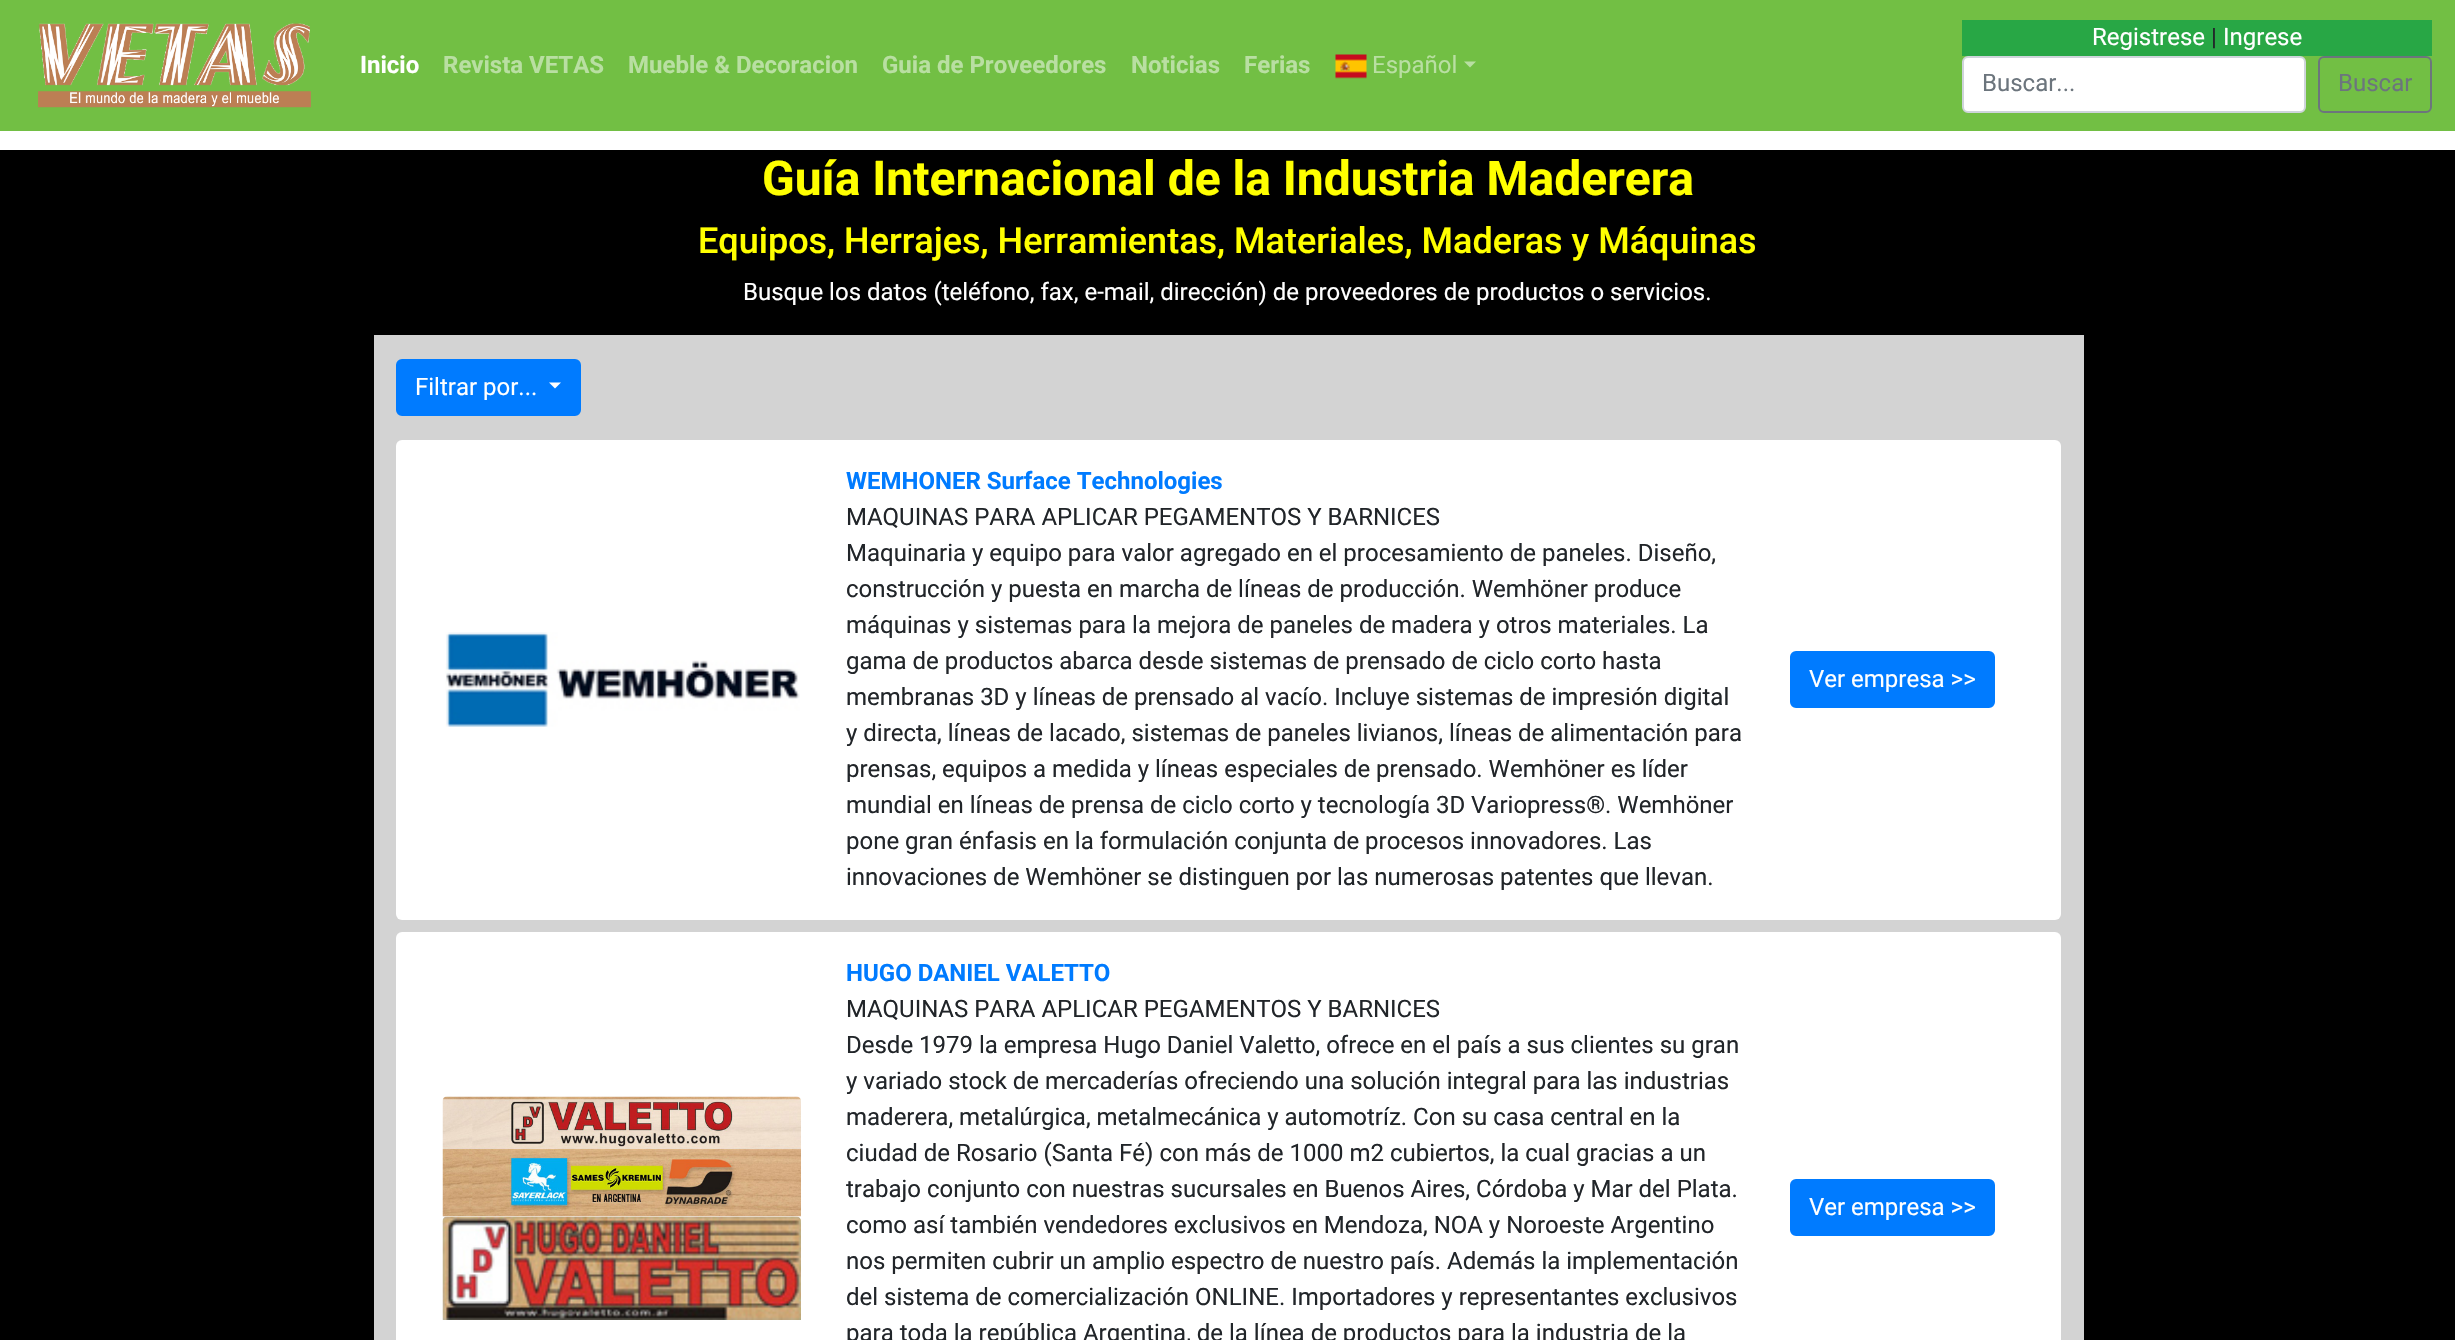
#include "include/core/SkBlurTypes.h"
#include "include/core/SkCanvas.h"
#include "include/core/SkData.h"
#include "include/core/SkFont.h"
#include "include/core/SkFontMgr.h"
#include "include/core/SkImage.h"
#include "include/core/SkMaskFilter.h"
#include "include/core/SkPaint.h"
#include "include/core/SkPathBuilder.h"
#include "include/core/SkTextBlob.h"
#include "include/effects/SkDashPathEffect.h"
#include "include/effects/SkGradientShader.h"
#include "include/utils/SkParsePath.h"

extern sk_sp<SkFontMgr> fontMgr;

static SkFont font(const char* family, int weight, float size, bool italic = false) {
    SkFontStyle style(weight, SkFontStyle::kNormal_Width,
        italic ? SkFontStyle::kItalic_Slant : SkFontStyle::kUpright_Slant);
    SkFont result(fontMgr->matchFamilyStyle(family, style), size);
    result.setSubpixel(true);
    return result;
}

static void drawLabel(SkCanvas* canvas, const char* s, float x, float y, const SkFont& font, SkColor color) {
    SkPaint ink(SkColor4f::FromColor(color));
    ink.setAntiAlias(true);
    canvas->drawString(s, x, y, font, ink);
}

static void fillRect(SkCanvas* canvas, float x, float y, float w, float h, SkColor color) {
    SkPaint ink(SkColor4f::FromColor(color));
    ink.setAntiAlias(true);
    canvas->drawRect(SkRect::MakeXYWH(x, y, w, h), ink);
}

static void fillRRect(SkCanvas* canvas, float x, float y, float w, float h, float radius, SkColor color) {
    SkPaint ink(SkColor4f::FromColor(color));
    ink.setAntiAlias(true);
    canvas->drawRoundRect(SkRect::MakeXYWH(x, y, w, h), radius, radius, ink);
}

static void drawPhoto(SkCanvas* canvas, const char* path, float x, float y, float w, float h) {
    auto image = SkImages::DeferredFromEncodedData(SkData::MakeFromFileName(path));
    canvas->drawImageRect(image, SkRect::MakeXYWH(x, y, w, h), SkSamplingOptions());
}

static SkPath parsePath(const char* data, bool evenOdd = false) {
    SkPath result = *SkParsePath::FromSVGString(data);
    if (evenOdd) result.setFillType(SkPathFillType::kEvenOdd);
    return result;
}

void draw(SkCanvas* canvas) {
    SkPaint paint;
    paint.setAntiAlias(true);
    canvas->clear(0xFFFFFFFF);
    fillRect(canvas, 0, 0, 2455, 131, 0xFF72BF44);
    drawPhoto(canvas, "assets/img1.png", 38, 23, 273, 85);
    SkFont font1 = font("Roboto", 700, 24);
    drawLabel(canvas, "Inicio", 360, 73, font1, 0xFFFFFFFF);
    drawLabel(canvas, "Revista VETAS", 443, 73, font1, 0xFFB9DFA2);
    drawLabel(canvas, "Mueble & Decoracion", 628, 73, font1, 0xFFB9DFA2);
    drawLabel(canvas, "Guia de Proveedores", 882, 73, font1, 0xFFB9DFA2);
    drawLabel(canvas, "Noticias", 1131, 73, font1, 0xFFB9DFA2);
    drawLabel(canvas, "Ferias", 1244, 73, font1, 0xFFB9DFA2);
    drawPhoto(canvas, "assets/img2.png", 1335, 54, 32, 25);
    SkFont font2 = font("Roboto", 400, 24);
    drawLabel(canvas, "Español", 1372, 73, font2, 0xFFB9DFA2);
    paint.setColor(0xFFB9DFA2);
    canvas->drawPath(parsePath("M1464 61.5H1476L1470 67.5Z"), paint);
    fillRect(canvas, 1962, 20, 470, 36, 0xFF28A745);
    drawLabel(canvas, "Registrese", 2092, 45, font2, 0xFFFFFFFF);
    drawLabel(canvas, "|", 2211, 45, font2, 0xFF212529);
    drawLabel(canvas, "Ingrese", 2223, 45, font2, 0xFFFFFFFF);
    paint.setColor(0xFFFFFFFF);
    canvas->drawRoundRect(SkRect::MakeXYWH(1963, 57, 342, 55), 5, 5, paint);
    paint.setStroke(true);
    paint.setStrokeWidth(2);
    paint.setColor(0xFFCED4DA);
    canvas->drawRoundRect(SkRect::MakeXYWH(1963, 57, 342, 55), 5, 5, paint);
    drawLabel(canvas, "Buscar...", 1982, 91, font2, 0xFF6C757D);
    paint.setColor(0xFF6C757D);
    canvas->drawRoundRect(SkRect::MakeXYWH(2319, 57, 112, 55), 5, 5, paint);
    drawLabel(canvas, "Buscar", 2338, 91, font2, 0xFF6C757D);
    fillRect(canvas, 0, 150, 2455, 1190, 0xFF000000);
    SkFont font3 = font("Roboto", 700, 48);
    drawLabel(canvas, "Guía Internacional de la Industria Maderera", 762, 195, font3, 0xFFFFFF00);
    SkFont font4 = font("Roboto", 500, 36);
    drawLabel(canvas, "Equipos, Herrajes, Herramientas, Materiales, Maderas y Máquinas", 698, 253, font4, 0xFFFFFF00);
    drawLabel(canvas, "Busque los datos (teléfono, fax, e-mail, dirección) de proveedores de productos o servicios.", 743, 300, font2, 0xFFFFFFFF);
    fillRect(canvas, 374, 335, 1710, 1005, 0xFFD3D3D3);
    paint.setStroke(false);
    paint.setColor(0xFF007BFF);
    canvas->drawRoundRect(SkRect::MakeXYWH(397, 360, 183, 55), 5, 5, paint);
    paint.setStroke(true);
    canvas->drawRoundRect(SkRect::MakeXYWH(397, 360, 183, 55), 5, 5, paint);
    drawLabel(canvas, "Filtrar por...", 415, 395, font2, 0xFFFFFFFF);
    paint.setStroke(false);
    paint.setColor(0xFFFFFFFF);
    canvas->drawPath(parsePath("M549 382.5H561L555 388.5Z"), paint);
    fillRRect(canvas, 396, 440, 1665, 480, 6, 0xFFFFFFFF);
    drawPhoto(canvas, "assets/img3.png", 445, 632, 355, 95);
    drawLabel(canvas, "WEMHONER Surface Technologies", 846, 489, font1, 0xFF007BFF);
    drawLabel(canvas, "MAQUINAS PARA APLICAR PEGAMENTOS Y BARNICES", 846, 525, font2, 0xFF212529);
    drawLabel(canvas, "Maquinaria y equipo para valor agregado en el procesamiento de paneles. Diseño,", 846, 561, font2, 0xFF212529);
    drawLabel(canvas, "construcción y puesta en marcha de líneas de producción. Wemhöner produce", 846, 597, font2, 0xFF212529);
    drawLabel(canvas, "máquinas y sistemas para la mejora de paneles de madera y otros materiales. La", 846, 633, font2, 0xFF212529);
    drawLabel(canvas, "gama de productos abarca desde sistemas de prensado de ciclo corto hasta", 846, 669, font2, 0xFF212529);
    drawLabel(canvas, "membranas 3D y líneas de prensado al vacío. Incluye sistemas de impresión digital", 846, 705, font2, 0xFF212529);
    drawLabel(canvas, "y directa, líneas de lacado, sistemas de paneles livianos, líneas de alimentación para", 846, 741, font2, 0xFF212529);
    drawLabel(canvas, "prensas, equipos a medida y líneas especiales de prensado. Wemhöner es líder", 846, 777, font2, 0xFF212529);
    drawLabel(canvas, "mundial en líneas de prensa de ciclo corto y tecnología 3D Variopress®. Wemhöner", 846, 813, font2, 0xFF212529);
    drawLabel(canvas, "pone gran énfasis en la formulación conjunta de procesos innovadores. Las", 846, 849, font2, 0xFF212529);
    drawLabel(canvas, "innovaciones de Wemhöner se distinguen por las numerosas patentes que llevan.", 846, 885, font2, 0xFF212529);
    paint.setColor(0xFF007BFF);
    canvas->drawRoundRect(SkRect::MakeXYWH(1791, 652, 203, 55), 5, 5, paint);
    paint.setStroke(true);
    canvas->drawRoundRect(SkRect::MakeXYWH(1791, 652, 203, 55), 5, 5, paint);
    drawLabel(canvas, "Ver empresa >>", 1809, 687, font2, 0xFFFFFFFF);
    fillRRect(canvas, 396, 932, 1665, 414, 6, 0xFFFFFFFF);
    drawPhoto(canvas, "assets/img4.png", 442, 1096, 359, 121);
    drawPhoto(canvas, "assets/img5.png", 442, 1216, 359, 104);
    drawLabel(canvas, "HUGO DANIEL VALETTO", 846, 981, font1, 0xFF007BFF);
    drawLabel(canvas, "MAQUINAS PARA APLICAR PEGAMENTOS Y BARNICES", 846, 1017, font2, 0xFF212529);
    drawLabel(canvas, "Desde 1979 la empresa Hugo Daniel Valetto, ofrece en el país a sus clientes su gran", 846, 1053, font2, 0xFF212529);
    drawLabel(canvas, "y variado stock de mercaderías ofreciendo una solución integral para las industrias", 846, 1089, font2, 0xFF212529);
    drawLabel(canvas, "maderera, metalúrgica, metalmecánica y automotríz. Con su casa central en la", 846, 1125, font2, 0xFF212529);
    drawLabel(canvas, "ciudad de Rosario (Santa Fé) con más de 1000 m2 cubiertos, la cual gracias a un", 846, 1161, font2, 0xFF212529);
    drawLabel(canvas, "trabajo conjunto con nuestras sucursales en Buenos Aires, Córdoba y Mar del Plata.", 846, 1197, font2, 0xFF212529);
    drawLabel(canvas, "como así también vendedores exclusivos en Mendoza, NOA y Noroeste Argentino", 846, 1233, font2, 0xFF212529);
    drawLabel(canvas, "nos permiten cubrir un amplio espectro de nuestro país. Además la implementación", 846, 1269, font2, 0xFF212529);
    drawLabel(canvas, "del sistema de comercialización ONLINE. Importadores y representantes exclusivos", 846, 1305, font2, 0xFF212529);
    drawLabel(canvas, "para toda la república Argentina, de la línea de productos para la industria de la", 846, 1341, font2, 0xFF212529);
    paint.setStroke(false);
    canvas->drawRoundRect(SkRect::MakeXYWH(1791, 1180, 203, 55), 5, 5, paint);
    paint.setStroke(true);
    canvas->drawRoundRect(SkRect::MakeXYWH(1791, 1180, 203, 55), 5, 5, paint);
    drawLabel(canvas, "Ver empresa >>", 1809, 1215, font2, 0xFFFFFFFF);
}
